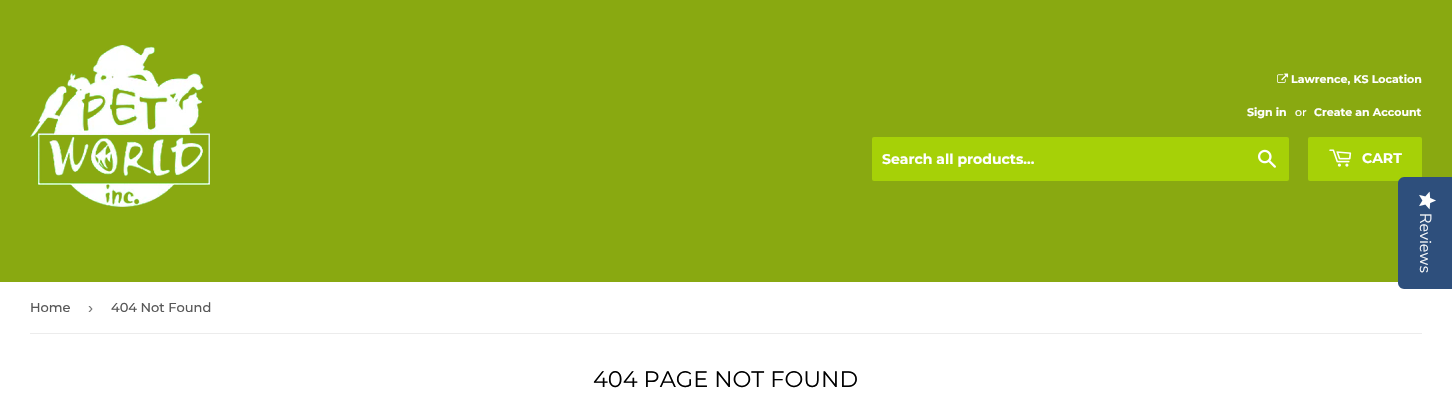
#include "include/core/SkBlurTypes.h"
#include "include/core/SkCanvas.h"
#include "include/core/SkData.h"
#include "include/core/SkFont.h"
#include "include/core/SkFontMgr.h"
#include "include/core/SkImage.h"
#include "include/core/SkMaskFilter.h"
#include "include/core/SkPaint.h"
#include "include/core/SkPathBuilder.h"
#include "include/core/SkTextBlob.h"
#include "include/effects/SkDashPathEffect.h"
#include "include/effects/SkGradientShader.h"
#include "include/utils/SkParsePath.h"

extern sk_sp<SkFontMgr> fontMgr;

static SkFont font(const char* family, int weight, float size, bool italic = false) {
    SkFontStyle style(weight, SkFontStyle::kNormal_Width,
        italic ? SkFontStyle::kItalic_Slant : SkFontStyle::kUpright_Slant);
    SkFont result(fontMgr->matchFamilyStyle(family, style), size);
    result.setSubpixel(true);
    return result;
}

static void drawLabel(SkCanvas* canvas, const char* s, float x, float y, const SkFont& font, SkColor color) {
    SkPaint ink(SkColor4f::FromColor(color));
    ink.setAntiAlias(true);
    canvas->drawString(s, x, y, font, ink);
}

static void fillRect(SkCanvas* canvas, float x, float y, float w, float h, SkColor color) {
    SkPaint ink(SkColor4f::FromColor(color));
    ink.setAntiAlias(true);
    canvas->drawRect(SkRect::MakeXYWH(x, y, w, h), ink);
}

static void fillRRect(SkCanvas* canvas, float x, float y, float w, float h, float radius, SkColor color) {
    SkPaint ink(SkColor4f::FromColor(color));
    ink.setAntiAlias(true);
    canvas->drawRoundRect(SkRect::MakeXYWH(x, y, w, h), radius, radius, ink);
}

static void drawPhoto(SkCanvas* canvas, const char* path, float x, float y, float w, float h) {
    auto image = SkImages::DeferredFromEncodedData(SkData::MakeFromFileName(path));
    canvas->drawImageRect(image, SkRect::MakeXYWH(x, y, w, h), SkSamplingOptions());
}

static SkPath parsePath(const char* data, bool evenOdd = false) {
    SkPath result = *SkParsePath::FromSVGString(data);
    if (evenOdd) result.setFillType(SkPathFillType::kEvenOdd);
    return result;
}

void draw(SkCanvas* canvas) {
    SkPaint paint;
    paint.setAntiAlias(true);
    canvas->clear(0xFFFFFFFF);
    fillRect(canvas, 0, 0, 1452, 282, 0xFF89A911);
    drawPhoto(canvas, "assets/img1.png", 30, 45, 180, 162);
    drawPhoto(canvas, "assets/img2.png", 1277, 73, 12, 10);
    SkFont font1 = font("Montserrat", 700, 11);
    drawLabel(canvas, "Lawrence, KS Location", 1291, 83, font1, 0xFFFFFFFF);
    drawLabel(canvas, "Sign in", 1247, 116, font1, 0xFFFFFFFF);
    SkFont font2 = font("Montserrat", 500, 11);
    drawLabel(canvas, "or", 1295, 116, font2, 0xFFFFFFFF);
    drawLabel(canvas, "Create an Account", 1314, 116, font1, 0xFFFFFFFF);
    fillRRect(canvas, 872, 137, 417, 44, 2, 0xFFA6D107);
    SkFont font3 = font("Montserrat", 700, 14);
    drawLabel(canvas, "Search all products...", 882, 164, font3, 0xFFFFFFFF);
    drawPhoto(canvas, "assets/img3.png", 1258, 149, 18, 19);
    fillRRect(canvas, 1308, 137, 114, 44, 2, 0xFFA6D107);
    drawPhoto(canvas, "assets/img4.png", 1329, 149, 23, 18);
    drawLabel(canvas, "CART", 1362, 163, font3, 0xFFFFFFFF);
    paint.setColor(0xFF2E4F7C);
    canvas->drawPath(parsePath("M1452 177V289H1404C1401 289 1398 286 1398 283V183C1398 180 1401 177 1404 177Z"), paint);
    drawPhoto(canvas, "assets/img5.png", 1419, 191, 17, 19);
    SkFont font4 = font("Nunito Sans", 300, 16);
    canvas->save();
    canvas->rotate(90, 1420, 213);
    drawLabel(canvas, "Reviews", 1420, 213, font4, 0xFFFFFFFF);
    canvas->restore();
    fillRect(canvas, 30, 333, 1392, 1, 0xFFECECEC);
    SkFont font5 = font("Montserrat", 500, 13);
    drawLabel(canvas, "Home", 30, 312, font5, 0xFF585858);
    SkFont font6 = font("Liberation Sans", 400, 15);
    drawLabel(canvas, "›", 88, 313, font6, 0xFF767676);
    drawLabel(canvas, "404 Not Found", 111, 312, font5, 0xFF585858);
    SkFont font7 = font("Montserrat", 400, 22.5f);
    drawLabel(canvas, "404 PAGE NOT FOUND", 593, 387, font7, 0xFF000000);
}
